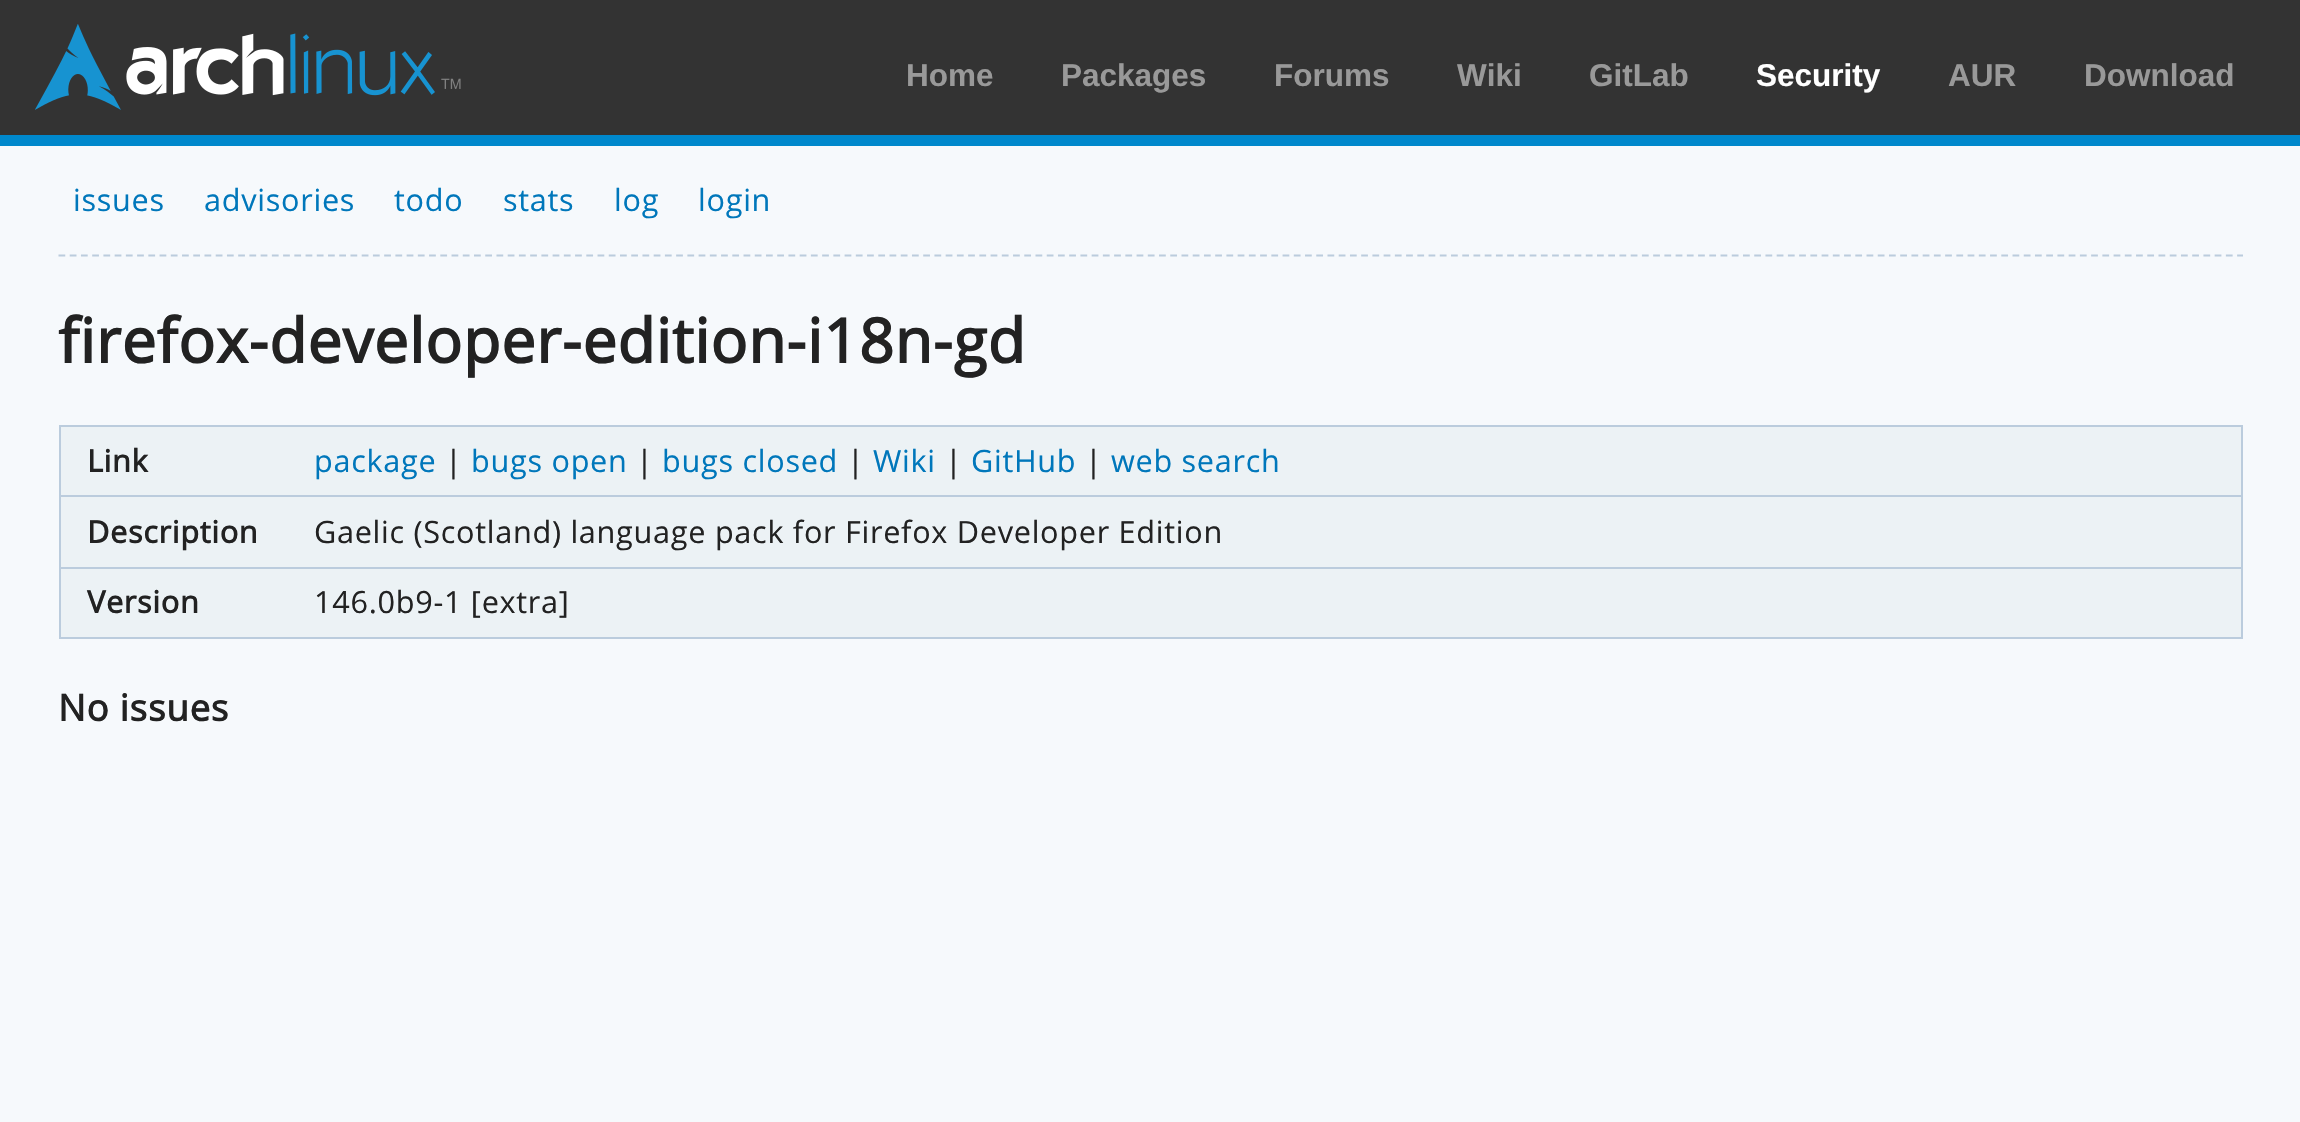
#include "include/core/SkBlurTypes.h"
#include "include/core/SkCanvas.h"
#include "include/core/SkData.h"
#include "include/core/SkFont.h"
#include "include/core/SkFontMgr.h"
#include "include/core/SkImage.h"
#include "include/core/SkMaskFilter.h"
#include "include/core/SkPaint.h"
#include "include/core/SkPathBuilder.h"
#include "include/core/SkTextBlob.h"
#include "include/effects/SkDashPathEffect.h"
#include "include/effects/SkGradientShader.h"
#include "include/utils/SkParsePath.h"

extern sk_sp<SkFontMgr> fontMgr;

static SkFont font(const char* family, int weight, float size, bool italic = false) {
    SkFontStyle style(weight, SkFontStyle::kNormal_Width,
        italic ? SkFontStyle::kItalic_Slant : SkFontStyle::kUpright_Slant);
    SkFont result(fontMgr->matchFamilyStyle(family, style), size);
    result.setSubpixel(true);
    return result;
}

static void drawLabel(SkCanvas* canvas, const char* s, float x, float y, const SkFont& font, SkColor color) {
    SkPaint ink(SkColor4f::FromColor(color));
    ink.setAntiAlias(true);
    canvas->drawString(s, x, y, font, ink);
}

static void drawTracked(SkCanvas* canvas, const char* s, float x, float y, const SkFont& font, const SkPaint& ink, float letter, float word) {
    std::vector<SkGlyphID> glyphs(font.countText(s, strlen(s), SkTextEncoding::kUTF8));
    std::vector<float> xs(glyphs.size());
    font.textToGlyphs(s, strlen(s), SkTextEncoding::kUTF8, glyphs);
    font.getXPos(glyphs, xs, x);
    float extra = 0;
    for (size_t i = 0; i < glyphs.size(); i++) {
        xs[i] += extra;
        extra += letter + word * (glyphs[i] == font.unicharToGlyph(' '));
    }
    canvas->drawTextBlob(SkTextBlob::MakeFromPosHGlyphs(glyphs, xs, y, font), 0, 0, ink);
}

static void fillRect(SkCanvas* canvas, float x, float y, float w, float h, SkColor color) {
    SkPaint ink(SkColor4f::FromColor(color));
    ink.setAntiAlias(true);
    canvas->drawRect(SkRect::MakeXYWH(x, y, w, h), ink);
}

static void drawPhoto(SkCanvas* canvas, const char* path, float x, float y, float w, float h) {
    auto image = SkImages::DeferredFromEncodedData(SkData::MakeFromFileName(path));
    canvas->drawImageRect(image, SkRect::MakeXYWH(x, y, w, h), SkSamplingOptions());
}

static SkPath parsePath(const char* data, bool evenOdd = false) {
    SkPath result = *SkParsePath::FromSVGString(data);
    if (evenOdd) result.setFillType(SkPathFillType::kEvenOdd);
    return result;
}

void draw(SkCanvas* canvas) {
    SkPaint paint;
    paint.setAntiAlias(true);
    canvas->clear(0xFFF6F9FC);
    fillRect(canvas, 0, 0, 2300, 135, 0xFF333333);
    fillRect(canvas, 0, 135, 2300, 11, 0xFF0088CC);
    drawPhoto(canvas, "assets/img1.png", 35, 24, 426, 86);
    SkFont font1 = font("Liberation Sans", 700, 31.5f);
    drawLabel(canvas, "Home", 906, 86, font1, 0xFF999999);
    drawLabel(canvas, "Packages", 1061, 86, font1, 0xFF999999);
    drawLabel(canvas, "Forums", 1274, 86, font1, 0xFF999999);
    drawLabel(canvas, "Wiki", 1457, 86, font1, 0xFF999999);
    drawLabel(canvas, "GitLab", 1589, 86, font1, 0xFF999999);
    drawLabel(canvas, "Security", 1756, 86, font1, 0xFFFFFFFF);
    drawLabel(canvas, "AUR", 1948, 86, font1, 0xFF999999);
    drawLabel(canvas, "Download", 2084, 86, font1, 0xFF999999);
    SkFont font2 = font("Open Sans", 400, 30.6f);
    paint.setColor(0xFF0077BB);
    drawTracked(canvas, "issues", 73, 211, font2, paint, 0.72f, 0);
    drawTracked(canvas, "advisories", 204, 211, font2, paint, 0.72f, 0);
    drawTracked(canvas, "todo", 394, 211, font2, paint, 0.72f, 0);
    drawTracked(canvas, "stats", 503, 211, font2, paint, 0.72f, 0);
    drawTracked(canvas, "log", 614, 211, font2, paint, 0.72f, 0);
    drawTracked(canvas, "login", 698, 211, font2, paint, 0.72f, 0);
    paint.setStroke(true);
    paint.setStrokeWidth(2.2f);
    paint.setColor(0xFFBBCCDD);
    paint.setPathEffect(SkDashPathEffect::Make({{6.75f, 4.48f}}, 0));
    canvas->drawPath(parsePath("M58.5 255.5H2243"), paint);
    paint.setPathEffect(nullptr);
    SkFont font3 = font("Open Sans", 700, 61.25f);
    paint.setStroke(false);
    paint.setColor(0xFF222222);
    drawTracked(canvas, "firefox-developer-edition-i18n-gd", 58, 363, font3, paint, 0.72f, 0);
    fillRect(canvas, 61, 427, 2180, 210, 0xFFECF2F5);
    fillRect(canvas, 59, 425, 2184, 2, 0xFFBBCCDD);
    fillRect(canvas, 2241, 425, 2, 214, 0xFFBBCCDD);
    fillRect(canvas, 59, 637, 2184, 2, 0xFFBBCCDD);
    fillRect(canvas, 59, 425, 2, 214, 0xFFBBCCDD);
    SkFont font4 = font("Open Sans", 700, 30.6f);
    drawTracked(canvas, "Link", 87, 472, font4, paint, 0.72f, 0);
    paint.setColor(0xFF0077BB);
    drawTracked(canvas, "package", 314, 472, font2, paint, 0.72f, 0);
    paint.setColor(0xFF222222);
    drawTracked(canvas, "|", 445, 472, font2, paint, 0.72f, 0);
    paint.setColor(0xFF0077BB);
    drawTracked(canvas, "bugs open", 471, 472, font2, paint, 0.72f, 0);
    paint.setColor(0xFF222222);
    drawTracked(canvas, "|", 636, 472, font2, paint, 0.72f, 0);
    paint.setColor(0xFF0077BB);
    drawTracked(canvas, "bugs closed", 662, 472, font2, paint, 0.72f, 0);
    paint.setColor(0xFF222222);
    drawTracked(canvas, "|", 847, 472, font2, paint, 0.72f, 0);
    paint.setColor(0xFF0077BB);
    drawTracked(canvas, "Wiki", 873, 472, font2, paint, 0.72f, 0);
    paint.setColor(0xFF222222);
    drawTracked(canvas, "|", 945, 472, font2, paint, 0.72f, 0);
    paint.setColor(0xFF0077BB);
    drawTracked(canvas, "GitHub", 971, 472, font2, paint, 0.72f, 0);
    paint.setColor(0xFF222222);
    drawTracked(canvas, "|", 1085, 472, font2, paint, 0.72f, 0);
    paint.setColor(0xFF0077BB);
    drawTracked(canvas, "web search", 1111, 472, font2, paint, 0.72f, 0);
    paint.setColor(0xFF222222);
    drawTracked(canvas, "Description", 87, 543, font4, paint, 0.72f, 0);
    fillRect(canvas, 59, 495, 2184, 2, 0xFFBBCCDD);
    drawTracked(canvas, "Gaelic (Scotland) language pack for Firefox Developer Edition", 314, 543, font2, paint, 0.72f, 0);
    drawTracked(canvas, "Version", 87, 613, font4, paint, 0.72f, 0);
    fillRect(canvas, 59, 567, 2184, 2, 0xFFBBCCDD);
    drawTracked(canvas, "146.0b9-1 [extra]", 314, 613, font2, paint, 0.72f, 0);
    SkFont font5 = font("Open Sans", 700, 36.75f);
    drawTracked(canvas, "No issues", 58, 721, font5, paint, 0.72f, 0);
}
